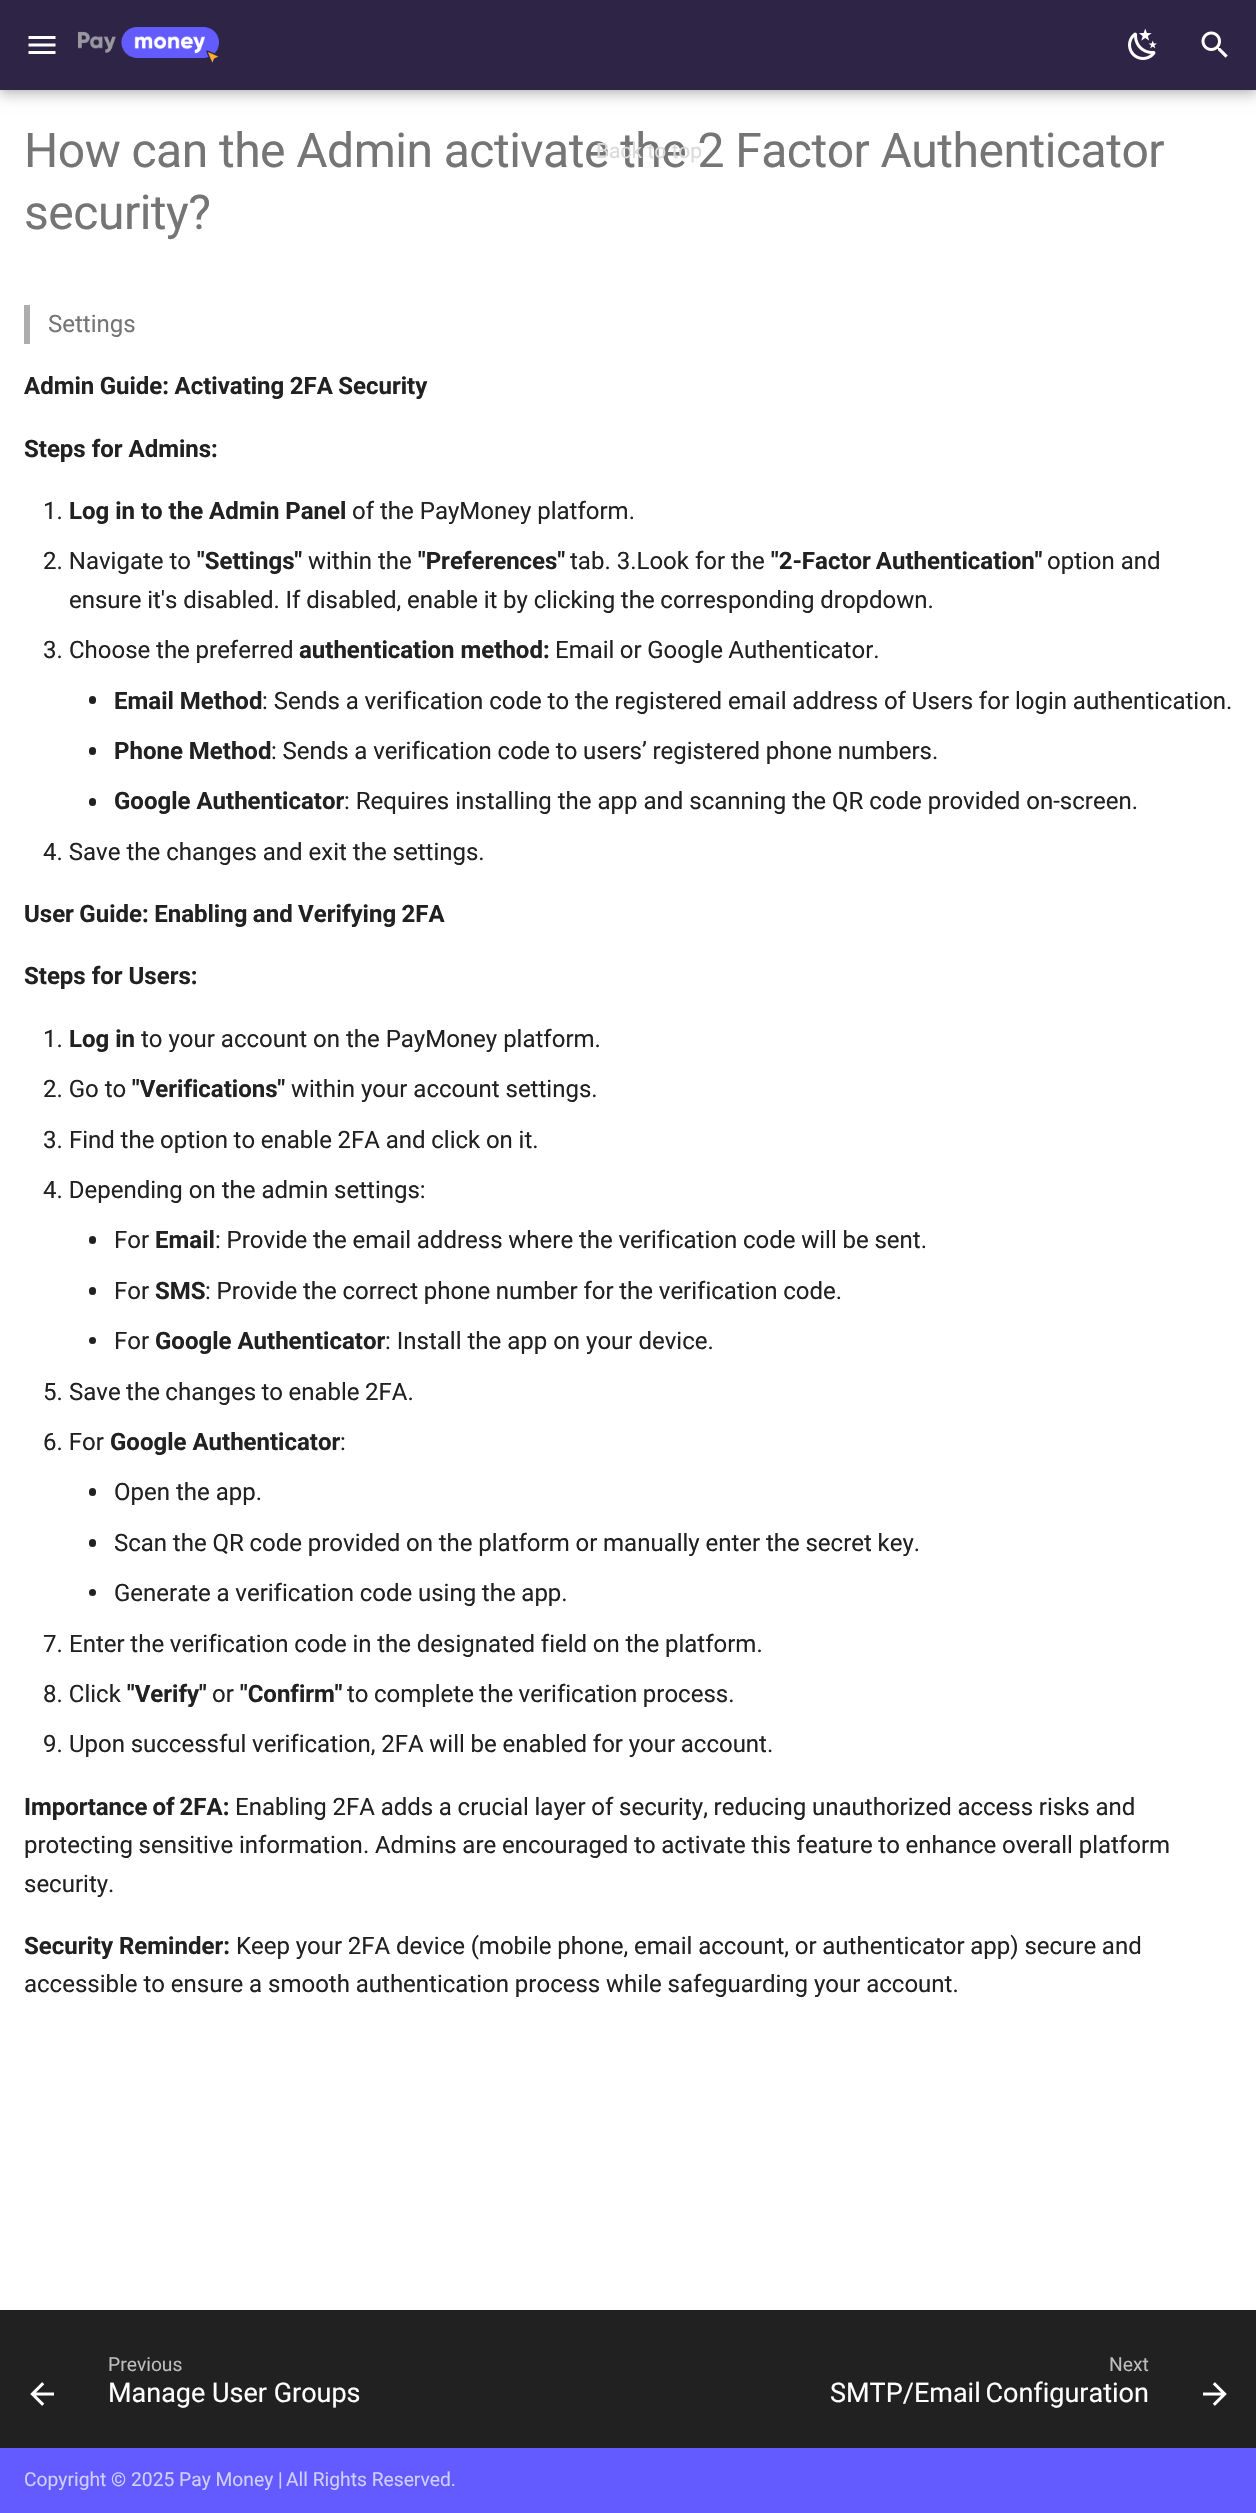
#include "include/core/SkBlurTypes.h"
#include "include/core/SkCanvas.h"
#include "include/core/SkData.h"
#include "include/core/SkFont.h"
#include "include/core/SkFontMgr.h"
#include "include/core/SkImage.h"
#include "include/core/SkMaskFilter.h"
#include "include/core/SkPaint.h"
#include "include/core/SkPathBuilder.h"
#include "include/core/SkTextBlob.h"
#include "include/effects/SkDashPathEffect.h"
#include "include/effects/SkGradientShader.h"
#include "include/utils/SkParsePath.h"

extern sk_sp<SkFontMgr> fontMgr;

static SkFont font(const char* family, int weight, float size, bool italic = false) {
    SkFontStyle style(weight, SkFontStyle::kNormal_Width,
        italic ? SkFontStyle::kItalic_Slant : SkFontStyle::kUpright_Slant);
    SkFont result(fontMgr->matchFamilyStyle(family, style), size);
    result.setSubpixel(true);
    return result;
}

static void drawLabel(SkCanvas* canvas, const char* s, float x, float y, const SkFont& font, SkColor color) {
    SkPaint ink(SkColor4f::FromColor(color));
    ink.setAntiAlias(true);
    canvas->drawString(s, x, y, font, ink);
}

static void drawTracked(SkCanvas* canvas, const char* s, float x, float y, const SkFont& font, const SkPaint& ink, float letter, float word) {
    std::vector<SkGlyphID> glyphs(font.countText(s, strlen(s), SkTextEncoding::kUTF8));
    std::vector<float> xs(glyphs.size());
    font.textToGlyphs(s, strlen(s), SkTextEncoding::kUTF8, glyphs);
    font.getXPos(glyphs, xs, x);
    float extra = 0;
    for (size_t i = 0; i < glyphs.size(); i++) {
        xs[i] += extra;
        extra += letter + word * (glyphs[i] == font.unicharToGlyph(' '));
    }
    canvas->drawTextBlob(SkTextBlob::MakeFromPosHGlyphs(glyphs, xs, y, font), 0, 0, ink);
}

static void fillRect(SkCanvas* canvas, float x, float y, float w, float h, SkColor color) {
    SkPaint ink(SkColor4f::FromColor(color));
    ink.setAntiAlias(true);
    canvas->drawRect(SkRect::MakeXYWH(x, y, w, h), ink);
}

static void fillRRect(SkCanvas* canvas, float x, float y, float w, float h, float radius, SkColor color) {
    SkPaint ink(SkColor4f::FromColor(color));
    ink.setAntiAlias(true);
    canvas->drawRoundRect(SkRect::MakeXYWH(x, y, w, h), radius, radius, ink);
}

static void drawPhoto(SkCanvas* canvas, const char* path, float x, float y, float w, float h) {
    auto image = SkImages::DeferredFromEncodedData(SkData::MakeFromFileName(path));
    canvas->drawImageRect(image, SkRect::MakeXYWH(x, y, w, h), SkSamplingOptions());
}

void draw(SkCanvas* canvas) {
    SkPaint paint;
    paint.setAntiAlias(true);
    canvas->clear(0xFFFFFFFF);
    paint.setColor(0x33000000);
    paint.setMaskFilter(SkMaskFilter::MakeBlur(kNormal_SkBlurStyle, 6));
    canvas->drawRect(SkRect::MakeXYWH(0, 6, 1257, 90), paint);
    paint.setMaskFilter(nullptr);
    paint.setColor(0x1A000000);
    paint.setMaskFilter(SkMaskFilter::MakeBlur(kNormal_SkBlurStyle, 3));
    canvas->drawRect(SkRect::MakeXYWH(0, 0, 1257, 90), paint);
    paint.setMaskFilter(nullptr);
    fillRect(canvas, 0, 0, 1256, 90, 0xFF2E2446);
    drawPhoto(canvas, "assets/img1.png", 28, 36, 28, 18);
    drawPhoto(canvas, "assets/img2.png", 78, 27, 141, 36);
    drawPhoto(canvas, "assets/img3.png", 1128, 28, 29, 32);
    drawPhoto(canvas, "assets/img4.png", 1201, 31, 27, 27);
    SkFont font1 = font("Roboto", 400, 48);
    paint.setColor(0xFF757575);
    drawTracked(canvas, "How can the Admin activate the 2 Factor Authenticator", 24, 167, font1, paint, -0.48f, -0.25f);
    drawTracked(canvas, "security?", 24, 229, font1, paint, -0.48f, 0);
    fillRect(canvas, 24, 305, 6, 39, 0xFFADADAD);
    SkFont font2 = font("Roboto", 400, 24);
    drawLabel(canvas, "Settings", 48, 332, font2, 0xFF757575);
    SkFont font3 = font("Roboto", 700, 24);
    paint.setColor(0xFF212121);
    drawTracked(canvas, "Admin Guide: Activating 2FA Security", 24, 394, font3, paint, 0, -0.5f);
    drawLabel(canvas, "Steps for Admins:", 24, 457, font3, 0xFF212121);
    drawLabel(canvas, "1.", 43, 519, font2, 0xFF212121);
    drawLabel(canvas, "Log in to the Admin Panel", 69, 519, font3, 0xFF212121);
    drawLabel(canvas, "of the PayMoney platform.", 352, 519, font2, 0xFF212121);
    drawLabel(canvas, "2. Navigate to", 43, 569, font2, 0xFF212121);
    drawLabel(canvas, "\"Settings\"", 197, 569, font3, 0xFF212121);
    drawLabel(canvas, "within the", 308, 569, font2, 0xFF212121);
    drawLabel(canvas, "\"Preferences\"", 418, 569, font3, 0xFF212121);
    drawLabel(canvas, "tab. 3.Look for the", 570, 569, font2, 0xFF212121);
    drawTracked(canvas, "\"2-Factor Authentication\"", 771, 569, font3, paint, 0, -1);
    drawLabel(canvas, "option and", 1047, 569, font2, 0xFF212121);
    drawTracked(canvas, "ensure it's disabled. If disabled, enable it by clicking the corresponding dropdown.", 69, 608, font2, paint, 0, -0.25f);
    drawLabel(canvas, "3.", 43, 658, font2, 0xFF212121);
    drawTracked(canvas, "Choose the preferred", 69, 658, font2, paint, 0, -0.25f);
    drawLabel(canvas, "authentication method:", 299, 658, font3, 0xFF212121);
    drawTracked(canvas, "Email or Google Authenticator.", 555, 658, font2, paint, 0, -0.5f);
    fillRRect(canvas, 89, 696, 7, 8, 3.5f, 0xFF212121);
    drawLabel(canvas, "Email Method", 114, 709, font3, 0xFF212121);
    drawTracked(canvas, ": Sends a verification code to the registered email address of Users for login authentication.", 262, 709, font2, paint, 0, -0.1f);
    fillRRect(canvas, 89, 747, 7, 8, 3.5f, 0xFF212121);
    drawLabel(canvas, "Phone Method", 114, 759, font3, 0xFF212121);
    drawTracked(canvas, ": Sends a verification code to users’ registered phone numbers.", 271, 759, font2, paint, 0, -0.25f);
    fillRRect(canvas, 89, 798, 7, 8, 3.5f, 0xFF212121);
    drawLabel(canvas, "Google Authenticator", 114, 809, font3, 0xFF212121);
    drawLabel(canvas, ": Requires installing the app and scanning the QR code provided on-screen.", 344, 809, font2, 0xFF212121);
    drawLabel(canvas, "4. Save the changes and exit the settings.", 43, 860, font2, 0xFF212121);
    drawTracked(canvas, "User Guide: Enabling and Verifying 2FA", 24, 922, font3, paint, 0, -0.5f);
    drawLabel(canvas, "Steps for Users:", 24, 984, font3, 0xFF212121);
    drawLabel(canvas, "1.", 43, 1047, font2, 0xFF212121);
    drawLabel(canvas, "Log in", 69, 1047, font3, 0xFF212121);
    drawLabel(canvas, "to your account on the PayMoney platform.", 141, 1047, font2, 0xFF212121);
    drawLabel(canvas, "2. Go to", 43, 1097, font2, 0xFF212121);
    drawLabel(canvas, "\"Verifications\"", 132, 1097, font3, 0xFF212121);
    drawLabel(canvas, "within your account settings.", 291, 1097, font2, 0xFF212121);
    drawLabel(canvas, "3.", 43, 1148, font2, 0xFF212121);
    drawTracked(canvas, "Find the option to enable 2FA and click on it.", 69, 1148, font2, paint, 0, -0.25f);
    drawLabel(canvas, "4. Depending on the admin settings:", 43, 1198, font2, 0xFF212121);
    fillRRect(canvas, 89, 1236, 7, 8, 3.5f, 0xFF212121);
    drawLabel(canvas, "For", 114, 1248, font2, 0xFF212121);
    drawLabel(canvas, "Email", 155, 1248, font3, 0xFF212121);
    drawTracked(canvas, ": Provide the email address where the verification code will be sent.", 215, 1248, font2, paint, 0, -0.2f);
    fillRRect(canvas, 89, 1287, 7, 8, 3.5f, 0xFF212121);
    drawLabel(canvas, "For", 114, 1299, font2, 0xFF212121);
    drawLabel(canvas, "SMS", 155, 1299, font3, 0xFF212121);
    drawTracked(canvas, ": Provide the correct phone number for the verification code.", 205, 1299, font2, paint, 0, -0.25f);
    canvas->drawCircle(92.5f, 1340.5f, 3.5f, paint);
    drawLabel(canvas, "For", 114, 1349, font2, 0xFF212121);
    drawLabel(canvas, "Google Authenticator", 155, 1349, font3, 0xFF212121);
    drawLabel(canvas, ": Install the app on your device.", 385, 1349, font2, 0xFF212121);
    drawLabel(canvas, "5.", 43, 1400, font2, 0xFF212121);
    drawTracked(canvas, "Save the changes to enable 2FA.", 69, 1400, font2, paint, 0, -0.5f);
    drawLabel(canvas, "6. For", 43, 1450, font2, 0xFF212121);
    drawLabel(canvas, "Google Authenticator", 110, 1450, font3, 0xFF212121);
    drawLabel(canvas, ":", 340, 1450, font2, 0xFF212121);
    fillRRect(canvas, 89, 1488, 7, 8, 3.5f, 0xFF212121);
    drawLabel(canvas, "Open the app.", 114, 1500, font2, 0xFF212121);
    fillRRect(canvas, 89, 1539, 7, 8, 3.5f, 0xFF212121);
    drawTracked(canvas, "Scan the QR code provided on the platform or manually enter the secret key.", 114, 1551, font2, paint, 0, -0.2f);
    canvas->drawCircle(92.5f, 1592.5f, 3.5f, paint);
    drawTracked(canvas, "Generate a verification code using the app.", 114, 1601, font2, paint, 0, -0.25f);
    drawLabel(canvas, "7.", 43, 1652, font2, 0xFF212121);
    drawTracked(canvas, "Enter the verification code in the designated field on the platform.", 69, 1652, font2, paint, 0, -0.25f);
    drawLabel(canvas, "8. Click", 43, 1702, font2, 0xFF212121);
    drawLabel(canvas, "\"Verify\"", 127, 1702, font3, 0xFF212121);
    drawLabel(canvas, "or", 212, 1702, font2, 0xFF212121);
    drawLabel(canvas, "\"Confirm\"", 240, 1702, font3, 0xFF212121);
    drawTracked(canvas, "to complete the verification process.", 347, 1702, font2, paint, 0, -0.5f);
    drawLabel(canvas, "9.", 43, 1752, font2, 0xFF212121);
    drawTracked(canvas, "Upon successful verification, 2FA will be enabled for your account.", 69, 1752, font2, paint, 0, -0.25f);
    drawTracked(canvas, "Importance of 2FA:", 24, 1815, font3, paint, 0, -1);
    drawTracked(canvas, "Enabling 2FA adds a crucial layer of security, reducing unauthorized access risks and", 235, 1815, font2, paint, 0, -0.25f);
    drawTracked(canvas, "protecting sensitive information. Admins are encouraged to activate this feature to enhance overall platform", 24, 1853, font2, paint, 0, -0.25f);
    drawLabel(canvas, "security.", 24, 1892, font2, 0xFF212121);
    drawLabel(canvas, "Security Reminder:", 24, 1954, font3, 0xFF212121);
    drawTracked(canvas, "Keep your 2FA device (mobile phone, email account, or authenticator app) secure and", 236, 1954, font2, paint, 0, -0.25f);
    drawTracked(canvas, "accessible to ensure a smooth authentication process while safeguarding your account.", 24, 1992, font2, paint, 0, -0.1f);
    SkFont font4 = font("Roboto", 400, 21);
    drawLabel(canvas, "Back to top", 596, 158, font4, 0xFFDADADA);
    fillRect(canvas, 0, 2310, 1256, 138, 0xFF212121);
    drawPhoto(canvas, "assets/img5.png", 30, 2382, 24, 24);
    SkFont font5 = font("Roboto", 400, 19.25f);
    drawLabel(canvas, "Previous", 108, 2371, font5, 0xFFBCBCBC);
    SkFont font6 = font("Roboto", 400, 27);
    drawLabel(canvas, "Manage User Groups", 108, 2402, font6, 0xFFFFFFFF);
    drawLabel(canvas, "Next", 1109, 2371, font5, 0xFFBCBCBC);
    paint.setColor(0xFFFFFFFF);
    drawTracked(canvas, "SMTP/Email Configuration", 830, 2402, font6, paint, 0, -2);
    drawPhoto(canvas, "assets/img6.png", 1203, 2382, 24, 24);
    fillRect(canvas, 0, 2448, 1256, 65, 0xFF635BFF);
    drawLabel(canvas, "Copyright © 2025 Pay Money |", 24, 2486, font5, 0xFFD0CEFF);
    drawLabel(canvas, "All Rights Reserved.", 286, 2486, font5, 0xFFD0CEFF);
}
